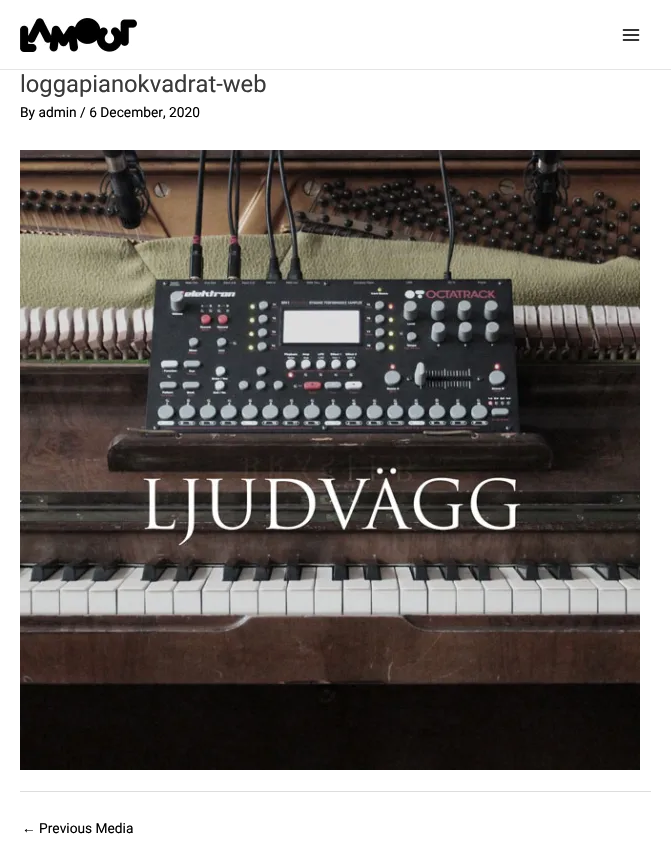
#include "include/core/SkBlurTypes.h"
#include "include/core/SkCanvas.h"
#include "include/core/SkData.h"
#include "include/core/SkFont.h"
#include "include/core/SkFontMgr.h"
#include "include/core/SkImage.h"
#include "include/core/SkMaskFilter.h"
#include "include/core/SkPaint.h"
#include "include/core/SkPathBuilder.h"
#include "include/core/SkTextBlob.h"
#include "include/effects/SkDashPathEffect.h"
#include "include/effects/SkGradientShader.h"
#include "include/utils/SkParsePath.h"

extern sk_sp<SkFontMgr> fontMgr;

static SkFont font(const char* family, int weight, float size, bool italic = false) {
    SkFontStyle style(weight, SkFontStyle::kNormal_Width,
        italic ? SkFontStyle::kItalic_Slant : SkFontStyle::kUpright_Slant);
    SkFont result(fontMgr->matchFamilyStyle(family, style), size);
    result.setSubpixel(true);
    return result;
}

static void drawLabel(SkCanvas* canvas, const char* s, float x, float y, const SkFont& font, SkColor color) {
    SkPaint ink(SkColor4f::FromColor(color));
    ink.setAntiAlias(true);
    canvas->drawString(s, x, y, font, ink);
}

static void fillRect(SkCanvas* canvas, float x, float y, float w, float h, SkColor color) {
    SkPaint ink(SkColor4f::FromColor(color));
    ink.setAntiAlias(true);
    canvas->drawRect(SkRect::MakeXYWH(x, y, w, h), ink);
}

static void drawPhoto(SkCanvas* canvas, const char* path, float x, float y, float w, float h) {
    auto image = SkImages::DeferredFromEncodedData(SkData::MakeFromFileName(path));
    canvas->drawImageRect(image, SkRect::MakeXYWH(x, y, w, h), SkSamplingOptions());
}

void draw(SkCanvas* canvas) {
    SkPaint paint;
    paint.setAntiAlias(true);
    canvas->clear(0xFFFFFFFF);
    fillRect(canvas, 0, 69, 671, 1, 0xFFE5E5E5);
    drawPhoto(canvas, "assets/img1.png", 20, 18, 117, 34);
    drawPhoto(canvas, "assets/img2.png", 622, 29, 18, 12);
    SkFont font1 = font("Roboto", 400, 23.75f);
    drawLabel(canvas, "loggapianokvadrat-web", 20, 92, font1, 0xFF3A3A3A);
    SkFont font2 = font("Roboto", 400, 13.75f);
    drawLabel(canvas, "By admin / 6 December, 2020", 20, 117, font2, 0xFF000000);
    drawPhoto(canvas, "assets/img3.png", 20, 150, 620, 620);
    fillRect(canvas, 20, 791, 631, 1, 0xFFDDDDDD);
    SkFont font3 = font("Liberation Sans", 400, 13.75f);
    drawLabel(canvas, "←", 22, 833, font3, 0xFF000000);
    drawLabel(canvas, "Previous Media", 39, 833, font2, 0xFF000000);
}
